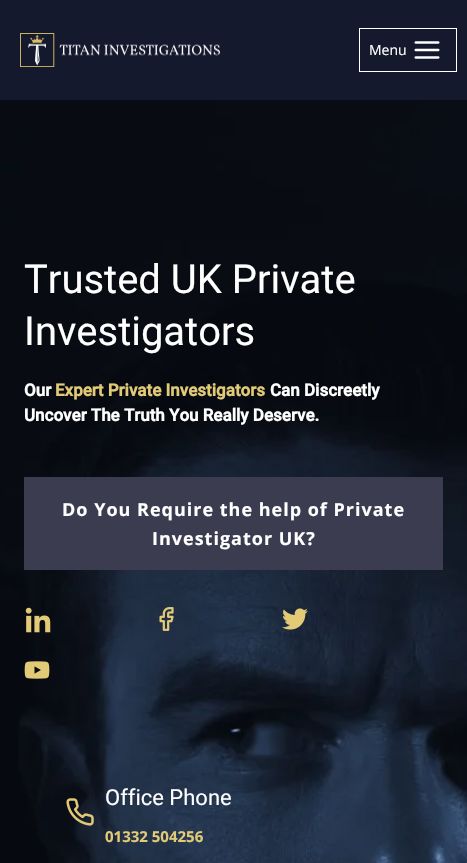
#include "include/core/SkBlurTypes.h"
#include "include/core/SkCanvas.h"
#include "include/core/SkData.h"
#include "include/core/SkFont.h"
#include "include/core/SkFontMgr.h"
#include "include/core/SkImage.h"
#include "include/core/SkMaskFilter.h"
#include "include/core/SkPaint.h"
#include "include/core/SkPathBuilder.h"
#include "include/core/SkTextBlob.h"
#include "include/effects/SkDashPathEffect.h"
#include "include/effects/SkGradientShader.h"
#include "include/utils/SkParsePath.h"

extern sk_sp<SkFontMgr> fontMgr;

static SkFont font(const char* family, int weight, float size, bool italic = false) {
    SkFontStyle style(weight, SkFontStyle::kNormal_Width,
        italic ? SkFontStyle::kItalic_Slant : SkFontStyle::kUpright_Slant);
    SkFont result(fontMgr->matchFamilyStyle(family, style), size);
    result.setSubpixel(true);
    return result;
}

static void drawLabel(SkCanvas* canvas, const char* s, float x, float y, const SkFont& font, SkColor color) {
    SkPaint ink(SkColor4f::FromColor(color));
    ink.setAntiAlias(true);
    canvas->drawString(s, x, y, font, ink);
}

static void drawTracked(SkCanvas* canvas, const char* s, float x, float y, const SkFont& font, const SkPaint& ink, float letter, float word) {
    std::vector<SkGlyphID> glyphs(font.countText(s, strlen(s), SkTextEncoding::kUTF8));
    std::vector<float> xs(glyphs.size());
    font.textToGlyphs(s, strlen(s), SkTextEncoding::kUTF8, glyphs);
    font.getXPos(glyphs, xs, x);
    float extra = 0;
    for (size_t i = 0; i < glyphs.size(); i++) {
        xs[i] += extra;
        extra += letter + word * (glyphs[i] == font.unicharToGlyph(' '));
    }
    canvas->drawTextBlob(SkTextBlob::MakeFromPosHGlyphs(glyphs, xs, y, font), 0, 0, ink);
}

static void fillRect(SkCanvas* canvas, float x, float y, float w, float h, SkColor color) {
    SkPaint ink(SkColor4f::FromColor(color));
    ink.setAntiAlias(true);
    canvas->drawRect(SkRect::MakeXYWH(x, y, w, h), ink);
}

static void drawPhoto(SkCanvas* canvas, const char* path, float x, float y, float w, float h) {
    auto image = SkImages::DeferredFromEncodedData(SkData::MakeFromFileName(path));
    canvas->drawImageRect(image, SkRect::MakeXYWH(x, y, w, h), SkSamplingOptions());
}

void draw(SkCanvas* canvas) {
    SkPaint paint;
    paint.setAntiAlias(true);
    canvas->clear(0xFFFFFFFF);
    fillRect(canvas, 0, 0, 467, 100, 0xFF15192D);
    drawPhoto(canvas, "assets/img1.png", 20, 33, 200, 34);
    paint.setStroke(true);
    paint.setStrokeWidth(1);
    paint.setColor(0xFFFFFFFF);
    canvas->drawRect(SkRect::MakeXYWH(359.5f, 28.5f, 97, 43), paint);
    SkFont font1 = font("Open Sans", 400, 14);
    drawLabel(canvas, "Menu", 369, 55, font1, 0xFFFFFFFF);
    drawPhoto(canvas, "assets/img2.png", 414, 41, 26, 18);
    drawPhoto(canvas, "assets/img3.png", 0, 100, 467, 763);
    SkFont font2 = font("Roboto", 400, 40);
    drawLabel(canvas, "Trusted UK Private", 24, 293, font2, 0xFFFFFFFF);
    drawLabel(canvas, "Investigators", 24, 345, font2, 0xFFFFFFFF);
    SkFont font3 = font("Roboto", 700, 17);
    drawLabel(canvas, "Our", 24, 396, font3, 0xFFFFFFFF);
    drawLabel(canvas, "Expert Private Investigators", 55, 396, font3, 0xFFE2CA76);
    drawLabel(canvas, "Can Discreetly", 270, 396, font3, 0xFFFFFFFF);
    drawLabel(canvas, "Uncover The Truth You Really Deserve.", 24, 421, font3, 0xFFFFFFFF);
    fillRect(canvas, 24, 477, 419, 93, 0xFF3C3C51);
    SkFont font4 = font("Open Sans", 700, 18);
    paint.setStroke(false);
    drawTracked(canvas, "Do You Require the help of Private", 62, 516, font4, paint, 1, 0);
    drawTracked(canvas, "Investigator UK?", 152, 545, font4, paint, 1, 0);
    drawPhoto(canvas, "assets/img4.png", 25, 607, 26, 26);
    drawPhoto(canvas, "assets/img5.png", 159, 607, 15, 24);
    drawPhoto(canvas, "assets/img6.png", 282, 608, 26, 22);
    drawPhoto(canvas, "assets/img7.png", 24, 661, 26, 18);
    drawPhoto(canvas, "assets/img8.png", 66, 798, 28, 28);
    SkFont font5 = font("Roboto", 400, 22);
    drawLabel(canvas, "Office Phone", 105, 805, font5, 0xFFFFFFFF);
    SkFont font6 = font("Open Sans", 700, 15);
    drawLabel(canvas, "01332 504256", 105, 842, font6, 0xFFE2CA76);
}
